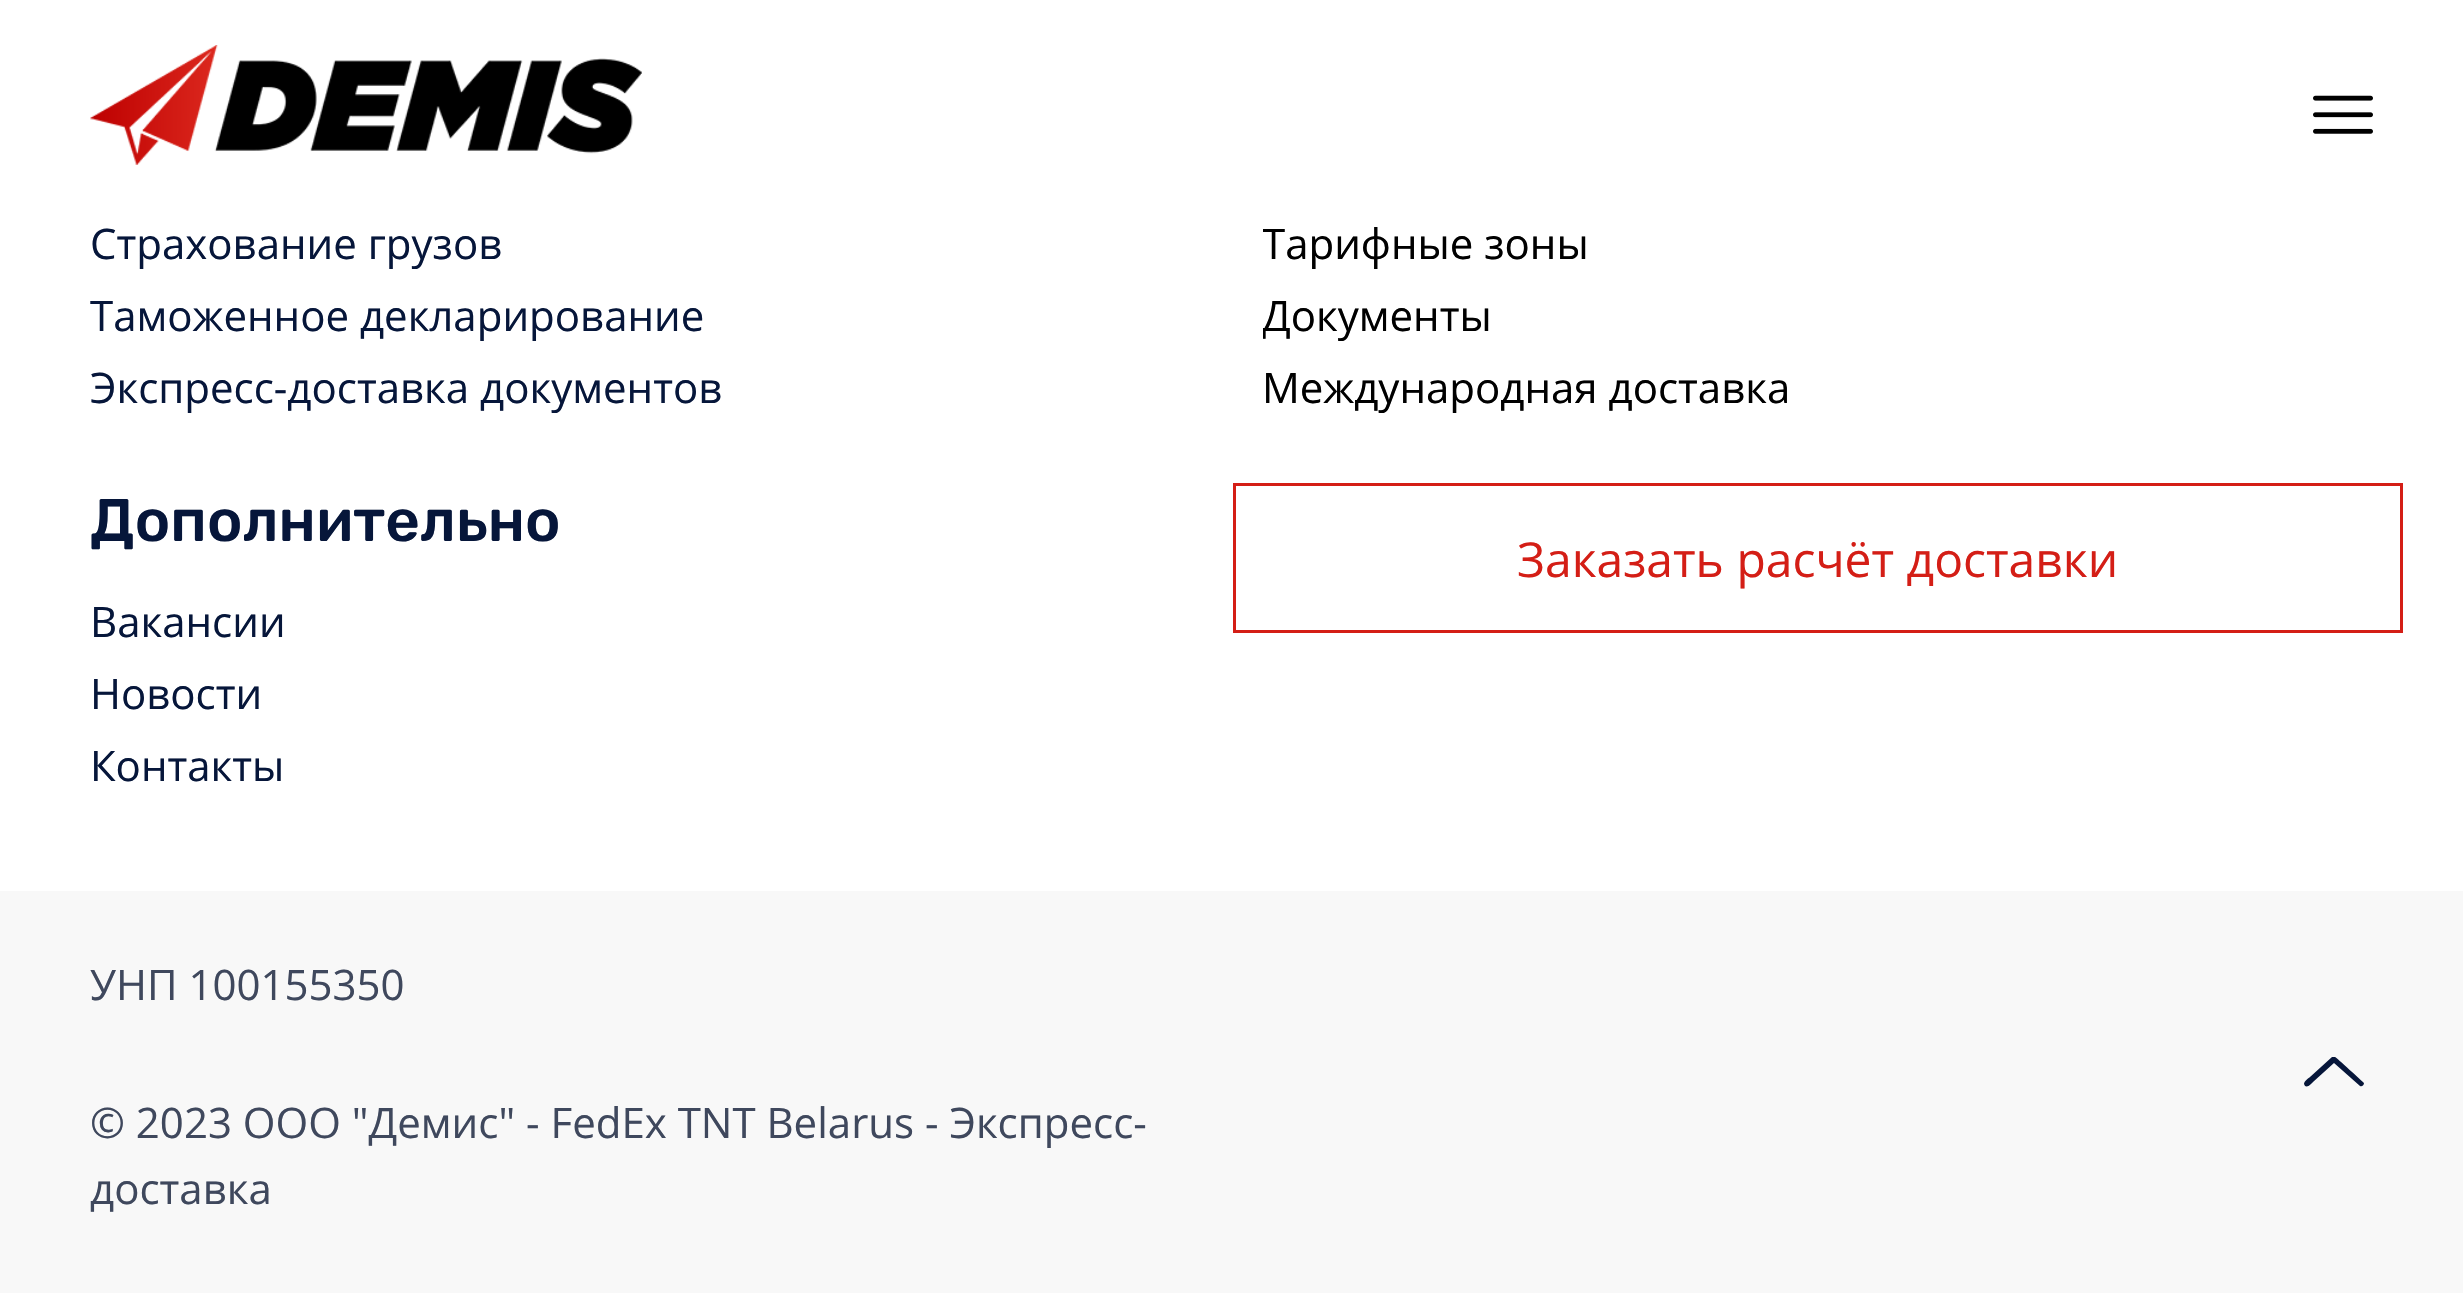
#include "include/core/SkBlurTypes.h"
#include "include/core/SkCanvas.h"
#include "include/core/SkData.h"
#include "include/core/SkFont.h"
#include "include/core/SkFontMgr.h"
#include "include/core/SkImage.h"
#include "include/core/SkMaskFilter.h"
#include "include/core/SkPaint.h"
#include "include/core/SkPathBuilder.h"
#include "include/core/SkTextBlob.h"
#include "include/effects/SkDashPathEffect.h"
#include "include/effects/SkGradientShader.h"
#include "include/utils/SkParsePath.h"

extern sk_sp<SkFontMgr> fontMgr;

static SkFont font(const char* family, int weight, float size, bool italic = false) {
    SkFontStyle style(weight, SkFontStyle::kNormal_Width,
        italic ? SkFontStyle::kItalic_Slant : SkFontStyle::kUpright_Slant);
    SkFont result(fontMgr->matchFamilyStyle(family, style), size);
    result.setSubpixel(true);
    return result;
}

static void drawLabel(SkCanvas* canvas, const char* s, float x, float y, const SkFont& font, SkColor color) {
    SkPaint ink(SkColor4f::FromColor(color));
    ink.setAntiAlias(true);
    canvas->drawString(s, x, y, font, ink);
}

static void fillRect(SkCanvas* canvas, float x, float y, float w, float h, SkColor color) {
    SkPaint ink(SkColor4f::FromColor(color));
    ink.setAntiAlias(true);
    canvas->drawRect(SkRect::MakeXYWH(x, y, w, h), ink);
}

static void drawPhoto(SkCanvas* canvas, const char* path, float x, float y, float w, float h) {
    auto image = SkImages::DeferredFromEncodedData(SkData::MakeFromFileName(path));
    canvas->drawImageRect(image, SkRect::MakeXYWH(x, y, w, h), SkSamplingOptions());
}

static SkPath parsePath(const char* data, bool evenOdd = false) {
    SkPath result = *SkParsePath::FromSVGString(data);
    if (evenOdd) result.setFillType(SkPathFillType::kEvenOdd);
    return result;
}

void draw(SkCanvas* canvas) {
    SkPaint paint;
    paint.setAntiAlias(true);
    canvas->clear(0xFFFFFFFF);
    drawPhoto(canvas, "assets/img1.png", 90, 45, 552, 120);
    drawPhoto(canvas, "assets/img2.png", 2313, 95, 60, 39);
    SkFont font1 = font("Open Sans", 400, 42);
    drawLabel(canvas, "Страхование грузов", 90, 259, font1, 0xFF06163A);
    drawLabel(canvas, "Таможенное декларирование", 90, 331, font1, 0xFF06163A);
    drawLabel(canvas, "Экспресс-доставка документов", 90, 403, font1, 0xFF06163A);
    canvas->save();
    canvas->clipRect(SkRect::MakeXYWH(1263, 207, 1110, 72));
    drawLabel(canvas, "Тарифные зоны", 1262, 259, font1, 0xFF000000);
    canvas->restore();
    canvas->save();
    canvas->clipRect(SkRect::MakeXYWH(1263, 279, 1110, 72));
    drawLabel(canvas, "Документы", 1262, 331, font1, 0xFF000000);
    canvas->restore();
    drawLabel(canvas, "Международная доставка", 1262, 403, font1, 0xFF000000);
    SkFont font2 = font("Rubik", 500, 60);
    drawLabel(canvas, "Дополнительно", 90, 541, font2, 0xFF06163A);
    drawLabel(canvas, "Вакансии", 90, 637, font1, 0xFF06163A);
    drawLabel(canvas, "Новости", 90, 709, font1, 0xFF06163A);
    drawLabel(canvas, "Контакты", 90, 781, font1, 0xFF06163A);
    paint.setStroke(true);
    paint.setStrokeWidth(3);
    paint.setColor(0xFFD41E16);
    canvas->drawRect(SkRect::MakeXYWH(1234.5f, 484.5f, 1167, 147), paint);
    SkFont font3 = font("Open Sans", 400, 48);
    drawLabel(canvas, "Заказать расчёт доставки", 1517, 577, font3, 0xFFD41E16);
    fillRect(canvas, 0, 891, 2463, 402, 0xFFF8F8F8);
    drawLabel(canvas, "УНП 100155350", 90, 1000, font1, 0xFF3F485D);
    drawLabel(canvas, "© 2023 ООО \"Демис\" - FedEx TNT Belarus - Экспресс-", 90, 1138, font1, 0xFF3F485D);
    drawLabel(canvas, "доставка", 90, 1204, font1, 0xFF3F485D);
    paint.setStroke(false);
    paint.setColor(0xFF06163A);
    canvas->drawPath(parsePath("M2332 1057L2310 1077C2309 1078 2304 1081 2304 1084L2305 1086C2308 1088 2312 1083 2313 1082L2334 1063L2360 1086C2362 1087 2364 1085 2364 1083C2363 1082 2336 1057 2335 1057Z"), paint);
}
